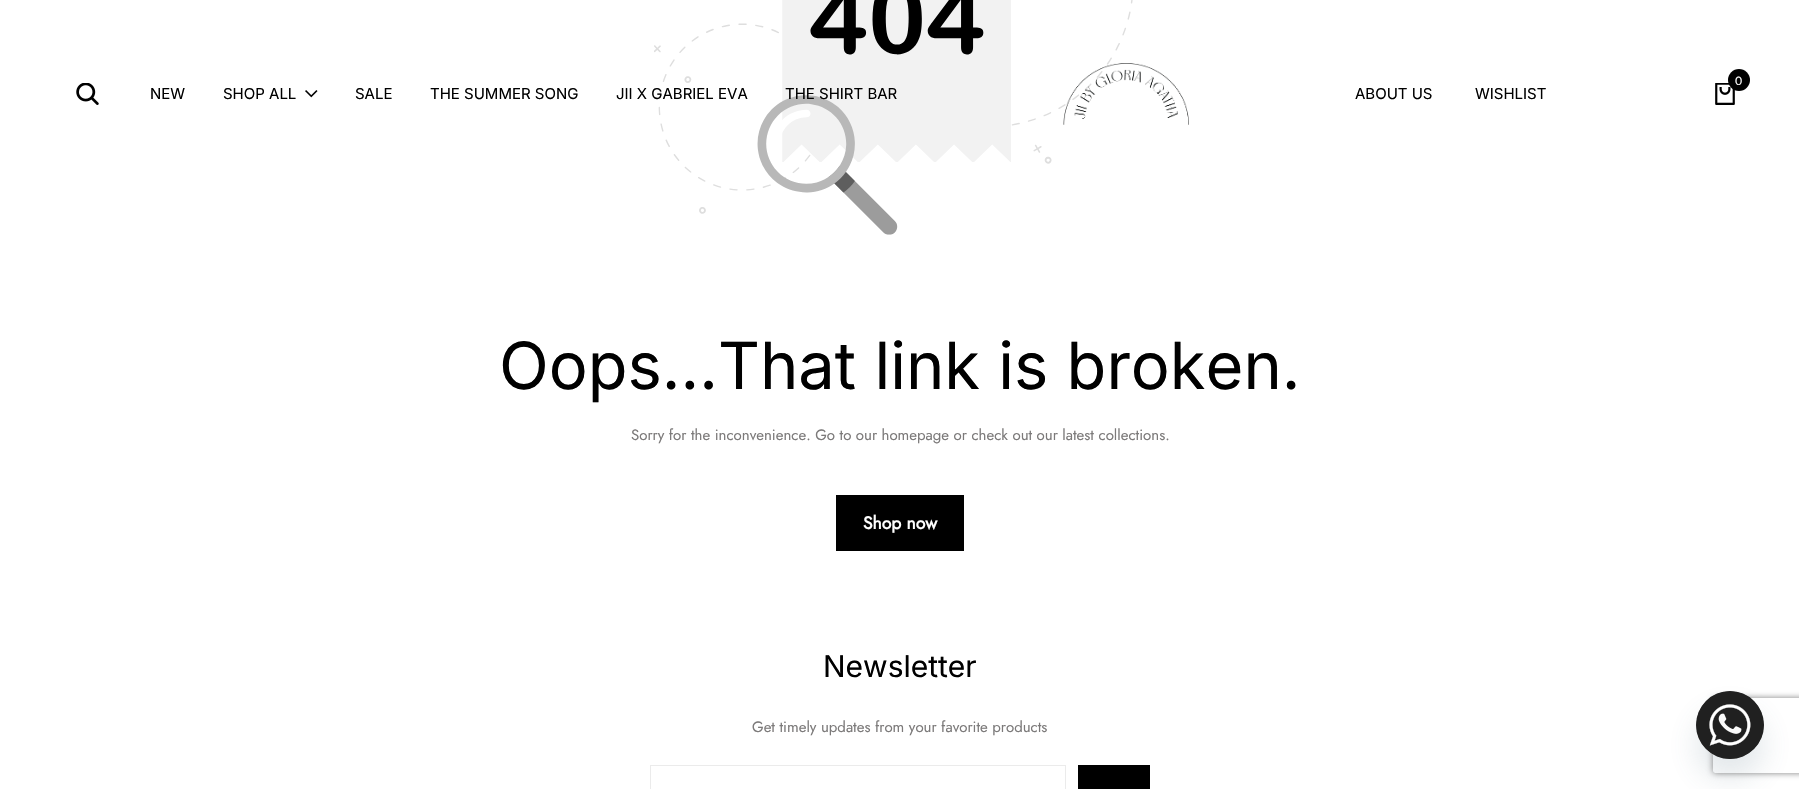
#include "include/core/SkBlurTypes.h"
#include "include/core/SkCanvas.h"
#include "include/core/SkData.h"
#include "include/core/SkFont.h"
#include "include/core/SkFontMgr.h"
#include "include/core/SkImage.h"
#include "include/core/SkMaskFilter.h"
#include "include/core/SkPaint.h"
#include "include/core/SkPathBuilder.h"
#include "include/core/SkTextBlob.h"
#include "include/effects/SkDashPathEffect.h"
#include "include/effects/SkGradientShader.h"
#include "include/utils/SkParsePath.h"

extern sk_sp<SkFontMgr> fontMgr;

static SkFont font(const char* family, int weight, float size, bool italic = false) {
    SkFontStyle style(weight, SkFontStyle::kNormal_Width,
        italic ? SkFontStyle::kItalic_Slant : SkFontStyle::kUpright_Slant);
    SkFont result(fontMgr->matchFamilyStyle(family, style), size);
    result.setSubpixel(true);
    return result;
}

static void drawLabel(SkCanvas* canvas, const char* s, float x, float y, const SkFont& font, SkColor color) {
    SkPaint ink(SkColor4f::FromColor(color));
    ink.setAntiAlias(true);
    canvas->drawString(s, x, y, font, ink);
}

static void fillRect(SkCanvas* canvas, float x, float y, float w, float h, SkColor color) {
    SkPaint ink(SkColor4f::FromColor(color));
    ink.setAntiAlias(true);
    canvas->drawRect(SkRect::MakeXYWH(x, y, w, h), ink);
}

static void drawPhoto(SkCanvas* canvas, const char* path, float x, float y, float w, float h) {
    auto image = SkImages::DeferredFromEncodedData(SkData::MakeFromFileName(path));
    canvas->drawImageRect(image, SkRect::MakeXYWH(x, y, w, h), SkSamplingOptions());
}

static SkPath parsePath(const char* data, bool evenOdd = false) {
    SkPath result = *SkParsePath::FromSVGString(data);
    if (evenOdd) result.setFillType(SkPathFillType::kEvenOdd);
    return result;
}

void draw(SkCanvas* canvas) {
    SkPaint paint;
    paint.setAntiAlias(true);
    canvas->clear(0xFFFFFFFF);
    drawPhoto(canvas, "assets/img1.png", 76, 83, 23, 22);
    SkFont font1 = font("Inter", 400, 15);
    drawLabel(canvas, "NEW", 150, 99, font1, 0xFF000000);
    drawLabel(canvas, "SHOP ALL", 223, 99, font1, 0xFF000000);
    drawPhoto(canvas, "assets/img2.png", 305, 90, 13, 8);
    drawLabel(canvas, "SALE", 355, 99, font1, 0xFF000000);
    drawLabel(canvas, "THE SUMMER SONG", 430, 99, font1, 0xFF000000);
    drawPhoto(canvas, "assets/img5.png", 654, 0, 479, 235);
    drawLabel(canvas, "JII X GABRIEL EVA", 616, 99, font1, 0xFF000000);
    drawLabel(canvas, "THE SHIRT BAR", 785, 99, font1, 0xFF000000);
    drawPhoto(canvas, "assets/img3.png", 1063, 63, 126, 62);
    drawPhoto(canvas, "assets/img4.png", 1715, 83, 20, 22);
    paint.setColor(0xFF000000);
    canvas->drawCircle(1739, 80, 11, paint);
    SkFont font2 = font("Jost", 400, 12);
    drawLabel(canvas, "0", 1735, 85, font2, 0xFFFFFFFF);
    drawLabel(canvas, "ABOUT US", 1355, 99, font1, 0xFF000000);
    drawLabel(canvas, "WISHLIST", 1475, 99, font1, 0xFF000000);
    SkFont font3 = font("Inter", 400, 65);
    drawLabel(canvas, "Oops...That link is broken.", 499, 389, font3, 0xFF000000);
    SkFont font4 = font("Jost", 400, 15);
    drawLabel(canvas, "Sorry for the inconvenience. Go to our homepage or check out our latest collections.", 631, 440, font4, 0xFF7C7A7A);
    fillRect(canvas, 836, 495, 128, 56, 0xFF000000);
    SkFont font5 = font("Jost", 700, 17.5f);
    drawLabel(canvas, "Shop now", 863, 529, font5, 0xFFFFFFFF);
    SkFont font6 = font("Inter", 400, 30);
    drawLabel(canvas, "Newsletter", 823, 677, font6, 0xFF000000);
    drawLabel(canvas, "Get timely updates from your favorite products", 752, 732, font4, 0xFF7C7A7A);
    paint.setStroke(true);
    paint.setStrokeWidth(1);
    paint.setColor(0xFFEBEBEB);
    canvas->drawRect(SkRect::MakeXYWH(650.5f, 765.5f, 415, 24), paint);
    fillRect(canvas, 1078, 765, 72, 24, 0xFF000000);
    paint.setStroke(false);
    paint.setColor(0x2949687E);
    paint.setMaskFilter(SkMaskFilter::MakeBlur(kNormal_SkBlurStyle, 15));
    canvas->drawRoundRect(SkRect::MakeXYWH(1696, 711, 68, 68), 34, 34, paint);
    paint.setMaskFilter(nullptr);
    canvas->save();
    canvas->clipPath(parsePath("M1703 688H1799V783H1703ZM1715.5 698H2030.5C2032 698 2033 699 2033 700.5V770.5C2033 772 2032 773 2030.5 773H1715.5C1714 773 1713 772 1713 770.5V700.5C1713 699 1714 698 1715.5 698Z", true), true);
    paint.setColor(0xFF808080);
    paint.setMaskFilter(SkMaskFilter::MakeBlur(kNormal_SkBlurStyle, 3));
    canvas->drawRoundRect(SkRect::MakeXYWH(1713, 698, 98, 75), 2.5f, 2.5f, paint);
    paint.setMaskFilter(nullptr);
    canvas->restore();
    paint.setColor(0xFF202020);
    canvas->drawCircle(1730, 725, 34, paint);
    drawPhoto(canvas, "assets/img6.png", 1696, 691, 68, 68);
}
